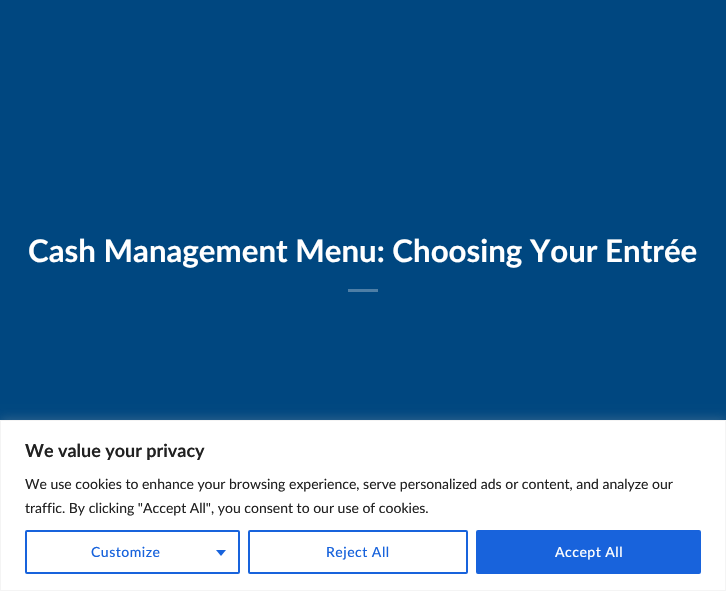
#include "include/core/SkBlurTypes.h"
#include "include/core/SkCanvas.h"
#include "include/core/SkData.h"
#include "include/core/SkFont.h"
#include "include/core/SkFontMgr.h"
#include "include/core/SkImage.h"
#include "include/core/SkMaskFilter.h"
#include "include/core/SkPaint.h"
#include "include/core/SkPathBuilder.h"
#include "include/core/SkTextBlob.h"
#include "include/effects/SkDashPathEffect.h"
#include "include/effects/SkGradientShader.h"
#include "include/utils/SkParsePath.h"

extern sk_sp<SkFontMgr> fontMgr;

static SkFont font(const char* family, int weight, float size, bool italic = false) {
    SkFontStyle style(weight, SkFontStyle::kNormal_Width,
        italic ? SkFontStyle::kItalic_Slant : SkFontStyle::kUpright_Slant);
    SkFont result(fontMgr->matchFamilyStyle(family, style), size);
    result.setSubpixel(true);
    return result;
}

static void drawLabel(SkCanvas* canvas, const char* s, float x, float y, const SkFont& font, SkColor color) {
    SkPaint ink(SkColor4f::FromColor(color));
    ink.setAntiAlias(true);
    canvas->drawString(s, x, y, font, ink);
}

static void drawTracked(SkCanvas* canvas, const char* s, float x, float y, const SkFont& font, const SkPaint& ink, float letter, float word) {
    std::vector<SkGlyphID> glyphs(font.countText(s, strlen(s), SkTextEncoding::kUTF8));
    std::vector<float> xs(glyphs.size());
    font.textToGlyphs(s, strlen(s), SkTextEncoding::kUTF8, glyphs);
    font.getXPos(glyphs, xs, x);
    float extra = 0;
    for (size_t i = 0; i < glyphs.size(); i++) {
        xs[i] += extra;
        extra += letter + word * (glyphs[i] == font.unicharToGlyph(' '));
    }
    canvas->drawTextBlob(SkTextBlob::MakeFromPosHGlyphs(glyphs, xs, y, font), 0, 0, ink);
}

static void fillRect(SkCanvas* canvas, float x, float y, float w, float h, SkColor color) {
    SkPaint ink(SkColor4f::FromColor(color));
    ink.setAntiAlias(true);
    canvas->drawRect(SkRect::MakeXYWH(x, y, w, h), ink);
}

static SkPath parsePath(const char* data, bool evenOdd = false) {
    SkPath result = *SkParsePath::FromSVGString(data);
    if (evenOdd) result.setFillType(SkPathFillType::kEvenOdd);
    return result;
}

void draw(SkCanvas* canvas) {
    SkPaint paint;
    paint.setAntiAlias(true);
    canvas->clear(0xFF004780);
    SkFont font1 = font("Lato", 700, 31.25f);
    drawLabel(canvas, "Cash Management Menu: Choosing Your Entrée", 28, 262, font1, 0xFFFFFFFF);
    fillRect(canvas, 348, 289, 30, 3, 0xFF4D7EA6);
    paint.setColor(0x4DACABAB);
    paint.setMaskFilter(SkMaskFilter::MakeBlur(kNormal_SkBlurStyle, 5));
    canvas->drawRect(SkRect::MakeXYWH(0, 419, 726, 171), paint);
    paint.setMaskFilter(nullptr);
    paint.setColor(0xFFFFFFFF);
    canvas->drawRect(SkRect::MakeXYWH(0.5f, 420.5f, 725, 170), paint);
    paint.setStroke(true);
    paint.setStrokeWidth(1);
    paint.setColor(0xFFF4F4F4);
    canvas->drawRect(SkRect::MakeXYWH(0.5f, 420.5f, 725, 170), paint);
    SkFont font2 = font("Lato", 700, 18);
    drawLabel(canvas, "We value your privacy", 25, 457, font2, 0xFF212121);
    SkFont font3 = font("Lato", 400, 14);
    drawLabel(canvas, "We use cookies to enhance your browsing experience, serve personalized ads or content, and analyze our", 25, 489, font3, 0xFF212121);
    drawLabel(canvas, "traffic. By clicking \"Accept All\", you consent to our use of cookies.", 25, 513, font3, 0xFF212121);
    paint.setStrokeWidth(2);
    paint.setColor(0xFF1863DC);
    canvas->drawRoundRect(SkRect::MakeXYWH(26, 531, 213, 42), 1, 1, paint);
    SkFont font4 = font("Lato", 500, 14);
    paint.setStroke(false);
    drawTracked(canvas, "Customize", 91, 557, font4, paint, 0.5f, 0);
    canvas->drawPath(parsePath("M216 550H226L221 556Z"), paint);
    paint.setStroke(true);
    canvas->drawRoundRect(SkRect::MakeXYWH(249, 531, 218, 42), 1, 1, paint);
    paint.setStroke(false);
    drawTracked(canvas, "Reject All", 326, 557, font4, paint, 0.5f, 0);
    canvas->drawRoundRect(SkRect::MakeXYWH(477, 531, 223, 42), 1, 1, paint);
    paint.setStroke(true);
    canvas->drawRoundRect(SkRect::MakeXYWH(477, 531, 223, 42), 1, 1, paint);
    paint.setStroke(false);
    paint.setColor(0xFFFFFFFF);
    drawTracked(canvas, "Accept All", 555, 557, font4, paint, 0.5f, 0);
}
